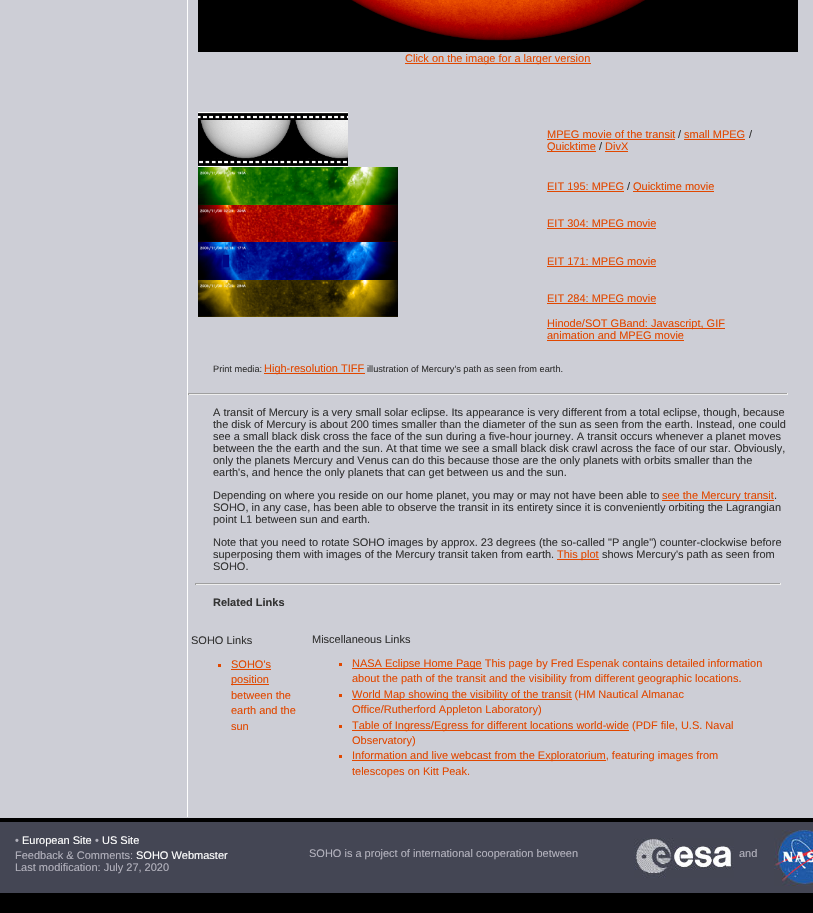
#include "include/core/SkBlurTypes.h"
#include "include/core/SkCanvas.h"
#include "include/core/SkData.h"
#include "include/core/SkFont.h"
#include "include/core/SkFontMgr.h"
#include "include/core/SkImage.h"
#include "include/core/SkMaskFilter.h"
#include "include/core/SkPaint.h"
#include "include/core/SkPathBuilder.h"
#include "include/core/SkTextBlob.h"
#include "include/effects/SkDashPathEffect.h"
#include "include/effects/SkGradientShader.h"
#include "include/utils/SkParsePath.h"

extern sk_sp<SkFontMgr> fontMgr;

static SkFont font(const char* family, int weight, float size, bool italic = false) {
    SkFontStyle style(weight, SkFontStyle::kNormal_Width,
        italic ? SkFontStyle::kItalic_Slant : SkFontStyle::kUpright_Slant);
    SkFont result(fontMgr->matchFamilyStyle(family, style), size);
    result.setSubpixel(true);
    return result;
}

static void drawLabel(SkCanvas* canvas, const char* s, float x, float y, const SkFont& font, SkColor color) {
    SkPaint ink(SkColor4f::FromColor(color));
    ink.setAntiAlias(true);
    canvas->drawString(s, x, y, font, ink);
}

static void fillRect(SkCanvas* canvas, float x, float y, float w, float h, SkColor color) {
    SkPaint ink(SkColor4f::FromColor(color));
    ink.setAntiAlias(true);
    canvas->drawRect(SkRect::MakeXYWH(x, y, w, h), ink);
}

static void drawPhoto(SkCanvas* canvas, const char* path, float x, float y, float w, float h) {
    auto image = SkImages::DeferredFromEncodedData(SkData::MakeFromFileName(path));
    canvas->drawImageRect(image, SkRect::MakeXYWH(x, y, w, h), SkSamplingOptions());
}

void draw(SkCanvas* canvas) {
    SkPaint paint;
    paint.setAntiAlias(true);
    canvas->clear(0xFF000000);
    fillRect(canvas, 0, 0, 813, 818, 0xFFCDCED6);
    fillRect(canvas, 187, 0, 1, 817, 0xFFFFFFFF);
    drawPhoto(canvas, "assets/img1.png", 198, 0, 600, 52);
    fillRect(canvas, 405, 63, 186, 1, 0xFFE14800);
    SkFont font1 = font("Liberation Sans", 400, 11);
    drawLabel(canvas, "Click on the image for a larger version", 405, 62, font1, 0xFFE14800);
    drawPhoto(canvas, "assets/img2.png", 198, 112, 150, 55);
    drawLabel(canvas, "MPEG movie of the transit", 547, 138, font1, 0xFFE14800);
    fillRect(canvas, 547, 139, 128, 1, 0xFFE14800);
    drawLabel(canvas, "/", 678, 138, font1, 0xFF333333);
    drawLabel(canvas, "small MPEG", 684, 138, font1, 0xFFE14800);
    fillRect(canvas, 684, 139, 61, 1, 0xFFE14800);
    drawLabel(canvas, "/", 749, 138, font1, 0xFF333333);
    fillRect(canvas, 547, 151, 49, 1, 0xFFE14800);
    drawLabel(canvas, "Quicktime", 547, 150, font1, 0xFFE14800);
    drawLabel(canvas, "/", 599, 150, font1, 0xFF333333);
    drawLabel(canvas, "DivX", 605, 150, font1, 0xFFE14800);
    fillRect(canvas, 605, 151, 23, 1, 0xFFE14800);
    drawPhoto(canvas, "assets/img3.png", 198, 167, 200, 38);
    drawLabel(canvas, "EIT 195: MPEG", 547, 190, font1, 0xFFE14800);
    fillRect(canvas, 547, 191, 77, 1, 0xFFE14800);
    drawLabel(canvas, "/", 627, 190, font1, 0xFF333333);
    fillRect(canvas, 633, 191, 81, 1, 0xFFE14800);
    drawLabel(canvas, "Quicktime movie", 633, 190, font1, 0xFFE14800);
    drawPhoto(canvas, "assets/img4.png", 198, 205, 200, 37);
    drawLabel(canvas, "EIT 304: MPEG movie", 547, 227, font1, 0xFFE14800);
    fillRect(canvas, 547, 228, 109, 1, 0xFFE14800);
    drawPhoto(canvas, "assets/img5.png", 198, 242, 200, 38);
    drawLabel(canvas, "EIT 171: MPEG movie", 547, 265, font1, 0xFFE14800);
    fillRect(canvas, 547, 266, 109, 1, 0xFFE14800);
    drawPhoto(canvas, "assets/img6.png", 198, 280, 200, 37);
    drawLabel(canvas, "EIT 284: MPEG movie", 547, 302, font1, 0xFFE14800);
    fillRect(canvas, 547, 303, 109, 1, 0xFFE14800);
    fillRect(canvas, 547, 328, 178, 1, 0xFFE14800);
    drawLabel(canvas, "Hinode/SOT GBand: Javascript, GIF", 547, 327, font1, 0xFFE14800);
    drawLabel(canvas, "animation and MPEG movie", 547, 339, font1, 0xFFE14800);
    fillRect(canvas, 547, 340, 137, 1, 0xFFE14800);
    SkFont font2 = font("Liberation Sans", 400, 9.2f);
    drawLabel(canvas, "Print media:", 213, 372, font2, 0xFF333333);
    fillRect(canvas, 264, 373, 101, 1, 0xFFE14800);
    drawLabel(canvas, "High-resolution TIFF", 264, 372, font1, 0xFFE14800);
    drawLabel(canvas, "illustration of Mercury's path as seen from earth.", 367, 372, font2, 0xFF333333);
    fillRect(canvas, 188, 393, 600, 1, 0xFF9F9F9F);
    fillRect(canvas, 787, 393, 1, 2, 0xFFEEEEEE);
    fillRect(canvas, 188, 394, 600, 1, 0xFFEEEEEE);
    fillRect(canvas, 188, 393, 1, 2, 0xFF9F9F9F);
    drawLabel(canvas, "A transit of Mercury is a very small solar eclipse. Its appearance is very different from a total eclipse, though, because", 213, 416, font1, 0xFF333333);
    drawLabel(canvas, "the disk of Mercury is about 200 times smaller than the diameter of the sun as seen from the earth. Instead, one could", 213, 428, font1, 0xFF333333);
    drawLabel(canvas, "see a small black disk cross the face of the sun during a five-hour journey. A transit occurs whenever a planet moves", 213, 440, font1, 0xFF333333);
    drawLabel(canvas, "between the the earth and the sun. At that time we see a small black disk crawl across the face of our star. Obviously,", 213, 452, font1, 0xFF333333);
    drawLabel(canvas, "only the planets Mercury and Venus can do this because those are the only planets with orbits smaller than the", 213, 464, font1, 0xFF333333);
    drawLabel(canvas, "earth's, and hence the only planets that can get between us and the sun.", 213, 476, font1, 0xFF333333);
    drawLabel(canvas, "Depending on where you reside on our home planet, you may or may not have been able to", 213, 499, font1, 0xFF333333);
    fillRect(canvas, 662, 500, 112, 1, 0xFFE14800);
    drawLabel(canvas, "see the Mercury transit", 662, 499, font1, 0xFFE14800);
    drawLabel(canvas, ".", 774, 499, font1, 0xFF333333);
    drawLabel(canvas, "SOHO, in any case, has been able to observe the transit in its entirety since it is conveniently orbiting the Lagrangian", 213, 511, font1, 0xFF333333);
    drawLabel(canvas, "point L1 between sun and earth.", 213, 523, font1, 0xFF333333);
    drawLabel(canvas, "Note that you need to rotate SOHO images by approx. 23 degrees (the so-called \"P angle\") counter-clockwise before", 213, 546, font1, 0xFF333333);
    drawLabel(canvas, "superposing them with images of the Mercury transit taken from earth.", 213, 558, font1, 0xFF333333);
    fillRect(canvas, 557, 559, 42, 1, 0xFFE14800);
    drawLabel(canvas, "This plot", 557, 558, font1, 0xFFE14800);
    drawLabel(canvas, "shows Mercury's path as seen from", 602, 558, font1, 0xFF333333);
    drawLabel(canvas, "SOHO.", 213, 570, font1, 0xFF333333);
    fillRect(canvas, 195, 583, 586, 1, 0xFF9F9F9F);
    fillRect(canvas, 780, 583, 1, 2, 0xFFEEEEEE);
    fillRect(canvas, 195, 584, 586, 1, 0xFFEEEEEE);
    fillRect(canvas, 195, 583, 1, 2, 0xFF9F9F9F);
    SkFont font3 = font("Liberation Sans", 700, 11);
    drawLabel(canvas, "Related Links", 213, 606, font3, 0xFF333333);
    drawLabel(canvas, "SOHO Links", 191, 644, font1, 0xFF333333);
    fillRect(canvas, 218, 664, 3, 3, 0xFFE14800);
    drawLabel(canvas, "SOHO's", 231, 668, font1, 0xFFE14800);
    fillRect(canvas, 231, 669, 40, 1, 0xFFE14800);
    fillRect(canvas, 231, 684, 38, 1, 0xFFE14800);
    drawLabel(canvas, "position", 231, 683, font1, 0xFFE14800);
    drawLabel(canvas, "between the", 231, 699, font1, 0xFFE14800);
    drawLabel(canvas, "earth and the", 231, 714, font1, 0xFFE14800);
    drawLabel(canvas, "sun", 231, 730, font1, 0xFFE14800);
    drawLabel(canvas, "Miscellaneous Links", 312, 643, font1, 0xFF333333);
    fillRect(canvas, 339, 663, 3, 3, 0xFFE14800);
    fillRect(canvas, 352, 668, 130, 1, 0xFFE14800);
    drawLabel(canvas, "NASA Eclipse Home Page This page by Fred Espenak contains detailed information", 352, 667, font1, 0xFFE14800);
    drawLabel(canvas, "about the path of the transit and the visibility from different geographic locations.", 352, 682, font1, 0xFFE14800);
    fillRect(canvas, 339, 694, 3, 3, 0xFFE14800);
    fillRect(canvas, 352, 699, 220, 1, 0xFFE14800);
    drawLabel(canvas, "World Map showing the visibility of the transit (HM Nautical Almanac", 352, 698, font1, 0xFFE14800);
    drawLabel(canvas, "Office/Rutherford Appleton Laboratory)", 352, 713, font1, 0xFFE14800);
    fillRect(canvas, 339, 725, 3, 3, 0xFFE14800);
    fillRect(canvas, 352, 730, 277, 1, 0xFFE14800);
    drawLabel(canvas, "Table of Ingress/Egress for different locations world-wide (PDF file, U.S. Naval", 352, 729, font1, 0xFFE14800);
    drawLabel(canvas, "Observatory)", 352, 744, font1, 0xFFE14800);
    fillRect(canvas, 339, 755, 3, 3, 0xFFE14800);
    fillRect(canvas, 352, 760, 254, 1, 0xFFE14800);
    drawLabel(canvas, "Information and live webcast from the Exploratorium, featuring images from", 352, 759, font1, 0xFFE14800);
    drawLabel(canvas, "telescopes on Kitt Peak.", 352, 775, font1, 0xFFE14800);
    fillRect(canvas, 0, 822, 813, 71, 0xFF444654);
    drawLabel(canvas, "•", 15, 844, font1, 0xFFB3B2BD);
    drawLabel(canvas, "European Site", 22, 844, font1, 0xFFFFFFFF);
    drawLabel(canvas, "•", 95, 844, font1, 0xFFB3B2BD);
    drawLabel(canvas, "US Site", 102, 844, font1, 0xFFFFFFFF);
    drawLabel(canvas, "Feedback & Comments:", 15, 859, font1, 0xFFB3B2BD);
    drawLabel(canvas, "SOHO Webmaster", 136, 859, font1, 0xFFFFFFFF);
    drawLabel(canvas, "Last modification: July 27, 2020", 15, 871, font1, 0xFFB3B2BD);
    drawLabel(canvas, "SOHO is a project of international cooperation between", 309, 857, font1, 0xFFB3B2BD);
    drawPhoto(canvas, "assets/img7.png", 634, 838, 100, 40);
    drawLabel(canvas, "and", 739, 857, font1, 0xFFB3B2BD);
    drawPhoto(canvas, "assets/img8.png", 774, 830, 39, 56);
}
